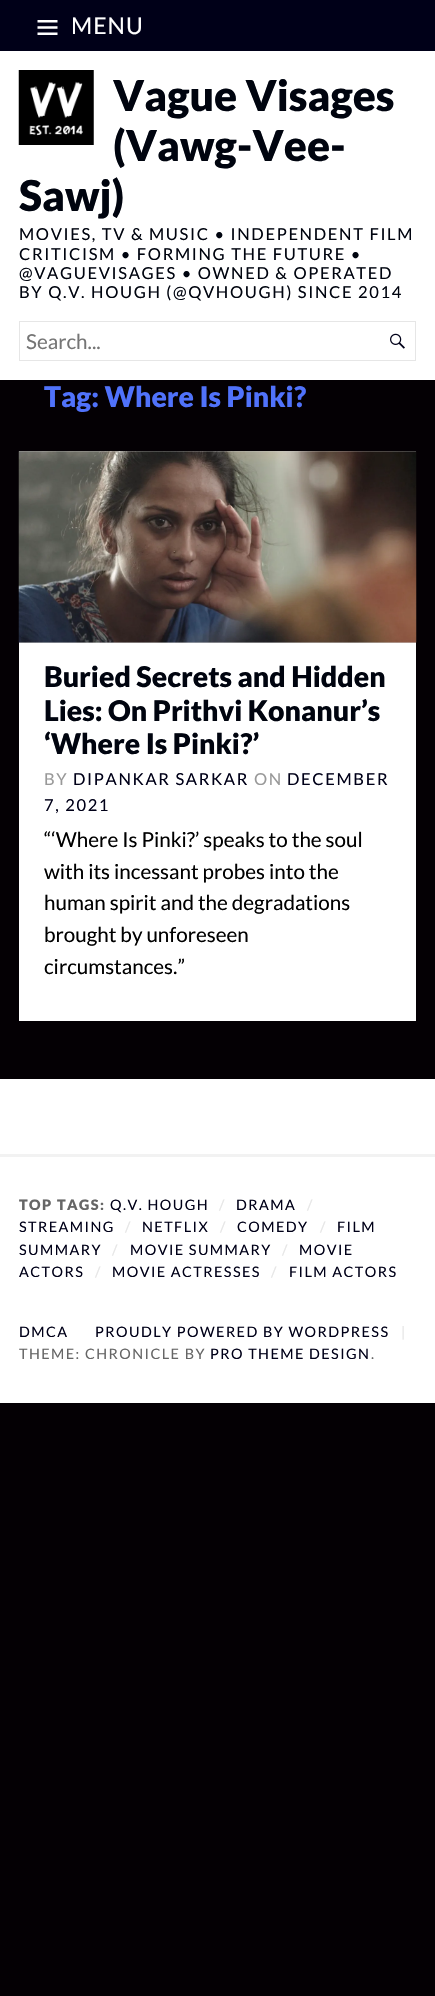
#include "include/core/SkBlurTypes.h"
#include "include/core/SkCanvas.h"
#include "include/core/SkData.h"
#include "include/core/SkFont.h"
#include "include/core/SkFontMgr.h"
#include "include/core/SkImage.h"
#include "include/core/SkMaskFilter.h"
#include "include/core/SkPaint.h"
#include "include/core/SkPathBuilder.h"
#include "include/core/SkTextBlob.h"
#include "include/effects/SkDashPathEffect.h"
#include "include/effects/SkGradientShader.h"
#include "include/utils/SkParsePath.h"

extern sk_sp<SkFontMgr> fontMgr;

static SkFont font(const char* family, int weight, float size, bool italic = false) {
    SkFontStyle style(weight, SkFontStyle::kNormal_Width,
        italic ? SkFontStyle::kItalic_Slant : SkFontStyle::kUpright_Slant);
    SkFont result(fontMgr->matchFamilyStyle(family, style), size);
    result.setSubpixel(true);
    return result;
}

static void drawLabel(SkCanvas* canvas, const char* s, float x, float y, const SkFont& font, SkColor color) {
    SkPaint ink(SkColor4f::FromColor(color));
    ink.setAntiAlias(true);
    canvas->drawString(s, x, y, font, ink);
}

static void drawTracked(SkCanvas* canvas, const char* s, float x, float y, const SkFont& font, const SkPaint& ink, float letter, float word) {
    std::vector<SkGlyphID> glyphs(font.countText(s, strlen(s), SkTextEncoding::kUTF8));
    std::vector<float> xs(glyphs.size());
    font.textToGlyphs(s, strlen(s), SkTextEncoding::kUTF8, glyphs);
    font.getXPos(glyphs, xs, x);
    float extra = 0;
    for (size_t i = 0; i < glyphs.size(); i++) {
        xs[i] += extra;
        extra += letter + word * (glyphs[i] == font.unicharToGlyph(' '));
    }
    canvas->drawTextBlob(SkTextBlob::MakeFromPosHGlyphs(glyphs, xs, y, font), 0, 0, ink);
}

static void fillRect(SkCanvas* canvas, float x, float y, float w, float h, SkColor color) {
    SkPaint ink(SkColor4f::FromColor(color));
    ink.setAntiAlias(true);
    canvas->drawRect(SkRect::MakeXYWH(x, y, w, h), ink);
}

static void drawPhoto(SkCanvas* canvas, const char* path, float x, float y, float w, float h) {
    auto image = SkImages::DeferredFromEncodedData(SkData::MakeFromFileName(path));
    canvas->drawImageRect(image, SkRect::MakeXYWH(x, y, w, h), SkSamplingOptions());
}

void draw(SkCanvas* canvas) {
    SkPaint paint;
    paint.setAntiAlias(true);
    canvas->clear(0xFF040004);
    fillRect(canvas, 0, 0, 435, 51, 0xFF000018);
    drawPhoto(canvas, "assets/img1.png", 37, 20, 21, 15);
    SkFont font1 = font("Lato", 400, 23);
    paint.setColor(0xFFFFFFFF);
    drawTracked(canvas, "MENU", 71, 34, font1, paint, 1, 0);
    fillRect(canvas, 0, 51, 435, 329, 0xFFFFFFFF);
    drawPhoto(canvas, "assets/img2.png", 18, 70, 76, 75);
    SkFont font2 = font("Lato", 900, 42.5f);
    drawLabel(canvas, "Vague Visages", 113, 111, font2, 0xFF00040F);
    drawLabel(canvas, "(Vawg-Vee-", 113, 161, font2, 0xFF00040F);
    drawLabel(canvas, "Sawj)", 19, 211, font2, 0xFF00040F);
    SkFont font3 = font("Lato", 400, 16.5f);
    paint.setColor(0xFF00040F);
    drawTracked(canvas, "MOVIES, TV & MUSIC • INDEPENDENT FILM", 19, 240, font3, paint, 1.65f, 0);
    drawTracked(canvas, "CRITICISM • FORMING THE FUTURE •", 19, 260, font3, paint, 1.65f, 0);
    drawTracked(canvas, "@VAGUEVISAGES • OWNED & OPERATED", 19, 279, font3, paint, 1.65f, 0);
    drawTracked(canvas, "BY Q.V. HOUGH (@QVHOUGH) SINCE 2014", 19, 298, font3, paint, 1.65f, 0);
    paint.setStroke(true);
    paint.setStrokeWidth(1);
    paint.setColor(0xFFE6E6E6);
    canvas->drawRect(SkRect::MakeXYWH(19.5f, 321.5f, 396, 39), paint);
    SkFont font4 = font("Lato", 400, 20.6f);
    drawLabel(canvas, "Search...", 26, 349, font4, 0xFF757575);
    drawPhoto(canvas, "assets/img3.png", 390, 333, 15, 16);
    SkFont font5 = font("Lato", 900, 28.4f);
    drawLabel(canvas, "Tag: Where Is Pinki?", 44, 407, font5, 0xFF5072FB);
    fillRect(canvas, 19, 643, 397, 378, 0xFFFFFFFF);
    fillRect(canvas, 19, 451, 397, 192, 0xFFCCCCCC);
    drawPhoto(canvas, "assets/img4.png", 18, 451, 399, 192);
    drawLabel(canvas, "Buried Secrets and Hidden", 44, 687, font5, 0xFF00040F);
    drawLabel(canvas, "Lies: On Prithvi Konanur’s", 44, 721, font5, 0xFF00040F);
    drawLabel(canvas, "‘Where Is Pinki?’", 44, 754, font5, 0xFF00040F);
    paint.setStroke(false);
    paint.setColor(0xFF999999);
    drawTracked(canvas, "BY", 44, 785, font3, paint, 1.65f, 0);
    paint.setColor(0xFF000018);
    drawTracked(canvas, "DIPANKAR SARKAR", 73, 785, font3, paint, 1.65f, 0);
    paint.setColor(0xFF999999);
    drawTracked(canvas, "ON", 254, 785, font3, paint, 1.65f, 0);
    paint.setColor(0xFF000018);
    drawTracked(canvas, "DECEMBER", 287, 785, font3, paint, 1.65f, 0);
    drawTracked(canvas, "7, 2021", 44, 811, font3, paint, 1.65f, 0);
    drawLabel(canvas, "“‘Where Is Pinki?’ speaks to the soul", 44, 847, font4, 0xFF000000);
    drawLabel(canvas, "with its incessant probes into the", 44, 879, font4, 0xFF000000);
    drawLabel(canvas, "human spirit and the degradations", 44, 910, font4, 0xFF000000);
    drawLabel(canvas, "brought by unforeseen", 44, 942, font4, 0xFF000000);
    drawLabel(canvas, "circumstances.”", 44, 974, font4, 0xFF000000);
    fillRect(canvas, 0, 1079, 435, 324, 0xFFFFFFFF);
    fillRect(canvas, 0, 1154, 435, 3, 0xFFF2F2F2);
    SkFont font6 = font("Lato", 900, 14.4f);
    paint.setColor(0xFF666666);
    drawTracked(canvas, "TOP TAGS:", 19, 1210, font6, paint, 1.45f, 0);
    SkFont font7 = font("Lato", 400, 14.4f);
    paint.setColor(0xFF000018);
    drawTracked(canvas, "Q.V. HOUGH", 110, 1210, font7, paint, 1.45f, 0);
    paint.setColor(0xFFE6E6E6);
    drawTracked(canvas, "/", 219, 1210, font7, paint, 1.45f, 0);
    paint.setColor(0xFF000018);
    drawTracked(canvas, "DRAMA", 236, 1210, font7, paint, 1.45f, 0);
    paint.setColor(0xFFE6E6E6);
    drawTracked(canvas, "/", 307, 1210, font7, paint, 1.45f, 0);
    paint.setColor(0xFF000018);
    drawTracked(canvas, "STREAMING", 19, 1232, font7, paint, 1.45f, 0);
    paint.setColor(0xFFE6E6E6);
    drawTracked(canvas, "/", 125, 1232, font7, paint, 1.45f, 0);
    paint.setColor(0xFF000018);
    drawTracked(canvas, "NETFLIX", 142, 1232, font7, paint, 1.45f, 0);
    paint.setColor(0xFFE6E6E6);
    drawTracked(canvas, "/", 220, 1232, font7, paint, 1.45f, 0);
    paint.setColor(0xFF000018);
    drawTracked(canvas, "COMEDY", 237, 1232, font7, paint, 1.45f, 0);
    paint.setColor(0xFFE6E6E6);
    drawTracked(canvas, "/", 320, 1232, font7, paint, 1.45f, 0);
    paint.setColor(0xFF000018);
    drawTracked(canvas, "FILM", 337, 1232, font7, paint, 1.45f, 0);
    drawTracked(canvas, "SUMMARY", 19, 1255, font7, paint, 1.45f, 0);
    paint.setColor(0xFFE6E6E6);
    drawTracked(canvas, "/", 112, 1255, font7, paint, 1.45f, 0);
    paint.setColor(0xFF000018);
    drawTracked(canvas, "MOVIE SUMMARY", 130, 1255, font7, paint, 1.45f, 0);
    paint.setColor(0xFFE6E6E6);
    drawTracked(canvas, "/", 282, 1255, font7, paint, 1.45f, 0);
    paint.setColor(0xFF000018);
    drawTracked(canvas, "MOVIE", 299, 1255, font7, paint, 1.45f, 0);
    drawTracked(canvas, "ACTORS", 19, 1277, font7, paint, 1.45f, 0);
    paint.setColor(0xFFE6E6E6);
    drawTracked(canvas, "/", 95, 1277, font7, paint, 1.45f, 0);
    paint.setColor(0xFF000018);
    drawTracked(canvas, "MOVIE ACTRESSES", 112, 1277, font7, paint, 1.45f, 0);
    paint.setColor(0xFFE6E6E6);
    drawTracked(canvas, "/", 271, 1277, font7, paint, 1.45f, 0);
    paint.setColor(0xFF000018);
    drawTracked(canvas, "FILM ACTORS", 289, 1277, font7, paint, 1.45f, 0);
    drawTracked(canvas, "DMCA", 19, 1337, font7, paint, 1.45f, 0);
    drawTracked(canvas, "PROUDLY POWERED BY WORDPRESS", 95, 1337, font7, paint, 1.45f, 0);
    paint.setColor(0xFFE6E6E6);
    drawTracked(canvas, "|", 401, 1337, font7, paint, 1.45f, 0);
    paint.setColor(0xFF666666);
    drawTracked(canvas, "THEME: CHRONICLE BY", 19, 1359, font7, paint, 1.45f, 0);
    paint.setColor(0xFF000018);
    drawTracked(canvas, "PRO THEME DESIGN", 210, 1359, font7, paint, 1.45f, 0);
    paint.setColor(0xFF666666);
    drawTracked(canvas, ".", 371, 1359, font7, paint, 1.45f, 0);
}
